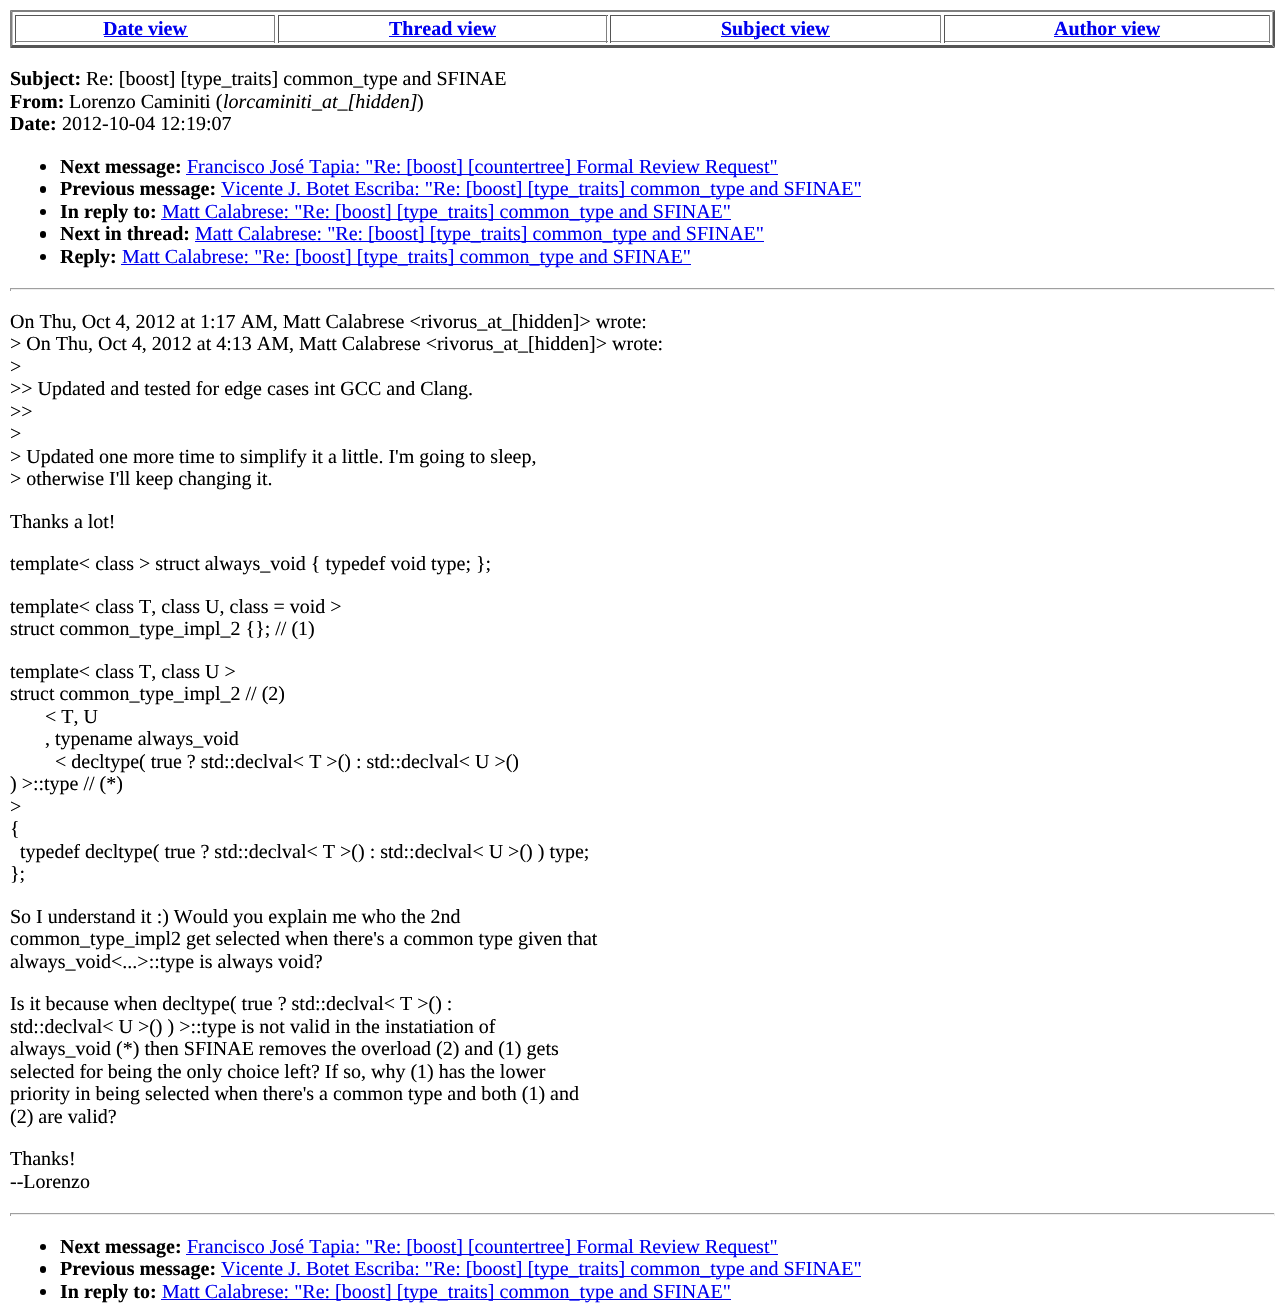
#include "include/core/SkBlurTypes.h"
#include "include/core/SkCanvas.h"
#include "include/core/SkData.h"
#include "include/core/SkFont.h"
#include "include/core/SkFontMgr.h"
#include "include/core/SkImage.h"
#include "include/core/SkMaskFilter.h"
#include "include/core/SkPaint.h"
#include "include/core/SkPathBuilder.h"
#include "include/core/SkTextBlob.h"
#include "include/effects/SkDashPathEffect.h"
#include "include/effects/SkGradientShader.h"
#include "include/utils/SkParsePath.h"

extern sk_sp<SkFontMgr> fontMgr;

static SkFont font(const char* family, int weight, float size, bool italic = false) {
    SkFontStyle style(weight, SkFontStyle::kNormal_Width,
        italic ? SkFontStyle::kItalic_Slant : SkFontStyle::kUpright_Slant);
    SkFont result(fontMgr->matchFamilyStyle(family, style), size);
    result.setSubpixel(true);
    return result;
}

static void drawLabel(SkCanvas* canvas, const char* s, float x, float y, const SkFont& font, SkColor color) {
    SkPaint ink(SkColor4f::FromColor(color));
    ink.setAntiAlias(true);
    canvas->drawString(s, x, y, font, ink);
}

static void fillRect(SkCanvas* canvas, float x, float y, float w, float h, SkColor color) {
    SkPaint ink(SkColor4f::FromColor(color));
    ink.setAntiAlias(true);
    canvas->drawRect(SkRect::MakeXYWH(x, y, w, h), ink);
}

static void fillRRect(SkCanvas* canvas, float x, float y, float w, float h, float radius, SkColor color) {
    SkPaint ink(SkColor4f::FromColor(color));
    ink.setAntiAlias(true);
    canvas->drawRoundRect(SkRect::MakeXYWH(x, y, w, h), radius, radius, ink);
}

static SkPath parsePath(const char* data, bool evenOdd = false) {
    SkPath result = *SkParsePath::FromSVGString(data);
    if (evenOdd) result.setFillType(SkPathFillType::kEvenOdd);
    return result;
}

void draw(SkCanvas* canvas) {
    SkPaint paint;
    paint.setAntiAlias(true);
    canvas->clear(0xFFFFFFFF);
    paint.setColor(0xFF808080);
    canvas->drawPath(parsePath("M10 10H1275L1272 12H12Z"), paint);
    paint.setColor(0xFF555555);
    canvas->drawPath(parsePath("M1275 10V47.5L1272.5 45V12.5Z"), paint);
    canvas->drawPath(parsePath("M1275 48H10L12 45H1272Z"), paint);
    paint.setColor(0xFF808080);
    canvas->drawPath(parsePath("M10 47.5V10L12.5 12.5V45Z"), paint);
    fillRect(canvas, 15, 15, 260, 1, 0xFF555555);
    fillRect(canvas, 274, 15, 1, 28, 0xFF808080);
    fillRect(canvas, 15, 41, 260, 1, 0xFF808080);
    fillRect(canvas, 15, 15, 1, 28, 0xFF555555);
    SkFont font1 = font("Liberation Serif", 700, 20);
    drawLabel(canvas, "Date view", 103, 35, font1, 0xFF0000EE);
    fillRect(canvas, 104, 36, 84, 1, 0xFF0000EE);
    fillRect(canvas, 278, 15, 330, 1, 0xFF555555);
    fillRect(canvas, 606, 15, 1, 28, 0xFF808080);
    fillRect(canvas, 278, 41, 330, 1, 0xFF808080);
    fillRect(canvas, 278, 15, 1, 28, 0xFF555555);
    drawLabel(canvas, "Thread view", 389, 35, font1, 0xFF0000EE);
    fillRect(canvas, 389, 36, 107, 1, 0xFF0000EE);
    fillRect(canvas, 610, 15, 331, 1, 0xFF555555);
    fillRect(canvas, 940, 15, 1, 28, 0xFF808080);
    fillRect(canvas, 610, 41, 331, 1, 0xFF808080);
    fillRect(canvas, 610, 15, 1, 28, 0xFF555555);
    fillRect(canvas, 721, 36, 109, 1, 0xFF0000EE);
    drawLabel(canvas, "Subject view", 721, 35, font1, 0xFF0000EE);
    fillRect(canvas, 944, 15, 326, 1, 0xFF555555);
    fillRect(canvas, 1269, 15, 1, 28, 0xFF808080);
    fillRect(canvas, 944, 41, 326, 1, 0xFF808080);
    fillRect(canvas, 944, 15, 1, 28, 0xFF555555);
    drawLabel(canvas, "Author view", 1054, 35, font1, 0xFF0000EE);
    fillRect(canvas, 1054, 36, 106, 1, 0xFF0000EE);
    drawLabel(canvas, "Subject:", 10, 85, font1, 0xFF000000);
    SkFont font2 = font("Liberation Serif", 400, 20);
    drawLabel(canvas, "Re: [boost] [type_traits] common_type and SFINAE", 86, 85, font2, 0xFF000000);
    drawLabel(canvas, "From:", 10, 108, font1, 0xFF000000);
    drawLabel(canvas, "Lorenzo Caminiti (", 69, 108, font2, 0xFF000000);
    SkFont font3 = font("Liberation Serif", 400, 20, true);
    drawLabel(canvas, "lorcaminiti_at_[hidden]", 223, 108, font3, 0xFF000000);
    drawLabel(canvas, ")", 417, 108, font2, 0xFF000000);
    drawLabel(canvas, "Date:", 10, 130, font1, 0xFF000000);
    drawLabel(canvas, "2012-10-04 12:19:07", 62, 130, font2, 0xFF000000);
    paint.setColor(0xFF000000);
    canvas->drawCircle(43, 167, 3, paint);
    drawLabel(canvas, "Next message:", 60, 173, font1, 0xFF000000);
    fillRect(canvas, 186, 174, 592, 1, 0xFF0000EE);
    drawLabel(canvas, "Francisco José Tapia: \"Re: [boost] [countertree] Formal Review Request\"", 187, 173, font2, 0xFF0000EE);
    fillRRect(canvas, 40, 186, 6, 7, 3, 0xFF000000);
    drawLabel(canvas, "Previous message:", 60, 195, font1, 0xFF000000);
    fillRect(canvas, 221, 196, 640, 1, 0xFF0000EE);
    drawLabel(canvas, "Vicente J. Botet Escriba: \"Re: [boost] [type_traits] common_type and SFINAE\"", 221, 195, font2, 0xFF0000EE);
    canvas->drawCircle(43, 212, 3, paint);
    drawLabel(canvas, "In reply to:", 60, 218, font1, 0xFF000000);
    fillRect(canvas, 161, 219, 570, 1, 0xFF0000EE);
    drawLabel(canvas, "Matt Calabrese: \"Re: [boost] [type_traits] common_type and SFINAE\"", 162, 218, font2, 0xFF0000EE);
    fillRRect(canvas, 40, 231, 6, 7, 3, 0xFF000000);
    drawLabel(canvas, "Next in thread:", 60, 240, font1, 0xFF000000);
    fillRect(canvas, 195, 241, 569, 1, 0xFF0000EE);
    drawLabel(canvas, "Matt Calabrese: \"Re: [boost] [type_traits] common_type and SFINAE\"", 195, 240, font2, 0xFF0000EE);
    canvas->drawCircle(43, 257, 3, paint);
    drawLabel(canvas, "Reply:", 60, 263, font1, 0xFF000000);
    fillRect(canvas, 121, 264, 570, 1, 0xFF0000EE);
    drawLabel(canvas, "Matt Calabrese: \"Re: [boost] [type_traits] common_type and SFINAE\"", 122, 263, font2, 0xFF0000EE);
    fillRect(canvas, 10, 288, 1265, 1, 0xFF9F9F9F);
    fillRect(canvas, 1274, 288, 1, 3, 0xFFEEEEEE);
    fillRect(canvas, 10, 289, 1265, 1, 0xFFEEEEEE);
    fillRect(canvas, 10, 288, 1, 3, 0xFF9F9F9F);
    drawLabel(canvas, "On Thu, Oct 4, 2012 at 1:17 AM, Matt Calabrese <rivorus_at_[hidden]> wrote:", 10, 328, font2, 0xFF000000);
    drawLabel(canvas, "> On Thu, Oct 4, 2012 at 4:13 AM, Matt Calabrese <rivorus_at_[hidden]> wrote:", 10, 350, font2, 0xFF000000);
    drawLabel(canvas, ">", 10, 373, font2, 0xFF000000);
    drawLabel(canvas, ">> Updated and tested for edge cases int GCC and Clang.", 10, 395, font2, 0xFF000000);
    drawLabel(canvas, ">>", 10, 418, font2, 0xFF000000);
    drawLabel(canvas, ">", 10, 440, font2, 0xFF000000);
    drawLabel(canvas, "> Updated one more time to simplify it a little. I'm going to sleep,", 10, 463, font2, 0xFF000000);
    drawLabel(canvas, "> otherwise I'll keep changing it.", 10, 485, font2, 0xFF000000);
    drawLabel(canvas, "Thanks a lot!", 10, 528, font2, 0xFF000000);
    drawLabel(canvas, "template< class > struct always_void { typedef void type; };", 10, 570, font2, 0xFF000000);
    drawLabel(canvas, "template< class T, class U, class = void >", 10, 613, font2, 0xFF000000);
    drawLabel(canvas, "struct common_type_impl_2 {}; // (1)", 10, 635, font2, 0xFF000000);
    drawLabel(canvas, "template< class T, class U >", 10, 678, font2, 0xFF000000);
    drawLabel(canvas, "struct common_type_impl_2 // (2)", 10, 700, font2, 0xFF000000);
    drawLabel(canvas, "< T, U", 45, 723, font2, 0xFF000000);
    drawLabel(canvas, ", typename always_void", 45, 745, font2, 0xFF000000);
    drawLabel(canvas, "< decltype( true ? std::declval< T >() : std::declval< U >()", 55, 768, font2, 0xFF000000);
    drawLabel(canvas, ") >::type // (*)", 10, 790, font2, 0xFF000000);
    drawLabel(canvas, ">", 10, 813, font2, 0xFF000000);
    drawLabel(canvas, "{", 10, 835, font2, 0xFF000000);
    drawLabel(canvas, "typedef decltype( true ? std::declval< T >() : std::declval< U >() ) type;", 20, 858, font2, 0xFF000000);
    drawLabel(canvas, "};", 10, 880, font2, 0xFF000000);
    drawLabel(canvas, "So I understand it :) Would you explain me who the 2nd", 10, 923, font2, 0xFF000000);
    drawLabel(canvas, "common_type_impl2 get selected when there's a common type given that", 10, 945, font2, 0xFF000000);
    drawLabel(canvas, "always_void<...>::type is always void?", 10, 968, font2, 0xFF000000);
    drawLabel(canvas, "Is it because when decltype( true ? std::declval< T >() :", 10, 1010, font2, 0xFF000000);
    drawLabel(canvas, "std::declval< U >() ) >::type is not valid in the instatiation of", 10, 1033, font2, 0xFF000000);
    drawLabel(canvas, "always_void (*) then SFINAE removes the overload (2) and (1) gets", 10, 1055, font2, 0xFF000000);
    drawLabel(canvas, "selected for being the only choice left? If so, why (1) has the lower", 10, 1078, font2, 0xFF000000);
    drawLabel(canvas, "priority in being selected when there's a common type and both (1) and", 10, 1100, font2, 0xFF000000);
    drawLabel(canvas, "(2) are valid?", 10, 1123, font2, 0xFF000000);
    drawLabel(canvas, "Thanks!", 10, 1165, font2, 0xFF000000);
    drawLabel(canvas, "--Lorenzo", 10, 1188, font2, 0xFF000000);
    fillRect(canvas, 10, 1213, 1265, 1, 0xFF9F9F9F);
    fillRect(canvas, 1274, 1213, 1, 3, 0xFFEEEEEE);
    fillRect(canvas, 10, 1214, 1265, 1, 0xFFEEEEEE);
    fillRect(canvas, 10, 1213, 1, 3, 0xFF9F9F9F);
    canvas->drawCircle(43, 1247, 3, paint);
    drawLabel(canvas, "Next message:", 60, 1253, font1, 0xFF000000);
    fillRect(canvas, 186, 1254, 592, 1, 0xFF0000EE);
    drawLabel(canvas, "Francisco José Tapia: \"Re: [boost] [countertree] Formal Review Request\"", 187, 1253, font2, 0xFF0000EE);
    fillRRect(canvas, 40, 1266, 6, 7, 3, 0xFF000000);
    drawLabel(canvas, "Previous message:", 60, 1275, font1, 0xFF000000);
    fillRect(canvas, 221, 1276, 640, 1, 0xFF0000EE);
    drawLabel(canvas, "Vicente J. Botet Escriba: \"Re: [boost] [type_traits] common_type and SFINAE\"", 221, 1275, font2, 0xFF0000EE);
    canvas->drawCircle(43, 1292, 3, paint);
    drawLabel(canvas, "In reply to:", 60, 1298, font1, 0xFF000000);
    fillRect(canvas, 161, 1299, 570, 1, 0xFF0000EE);
    drawLabel(canvas, "Matt Calabrese: \"Re: [boost] [type_traits] common_type and SFINAE\"", 162, 1298, font2, 0xFF0000EE);
}
